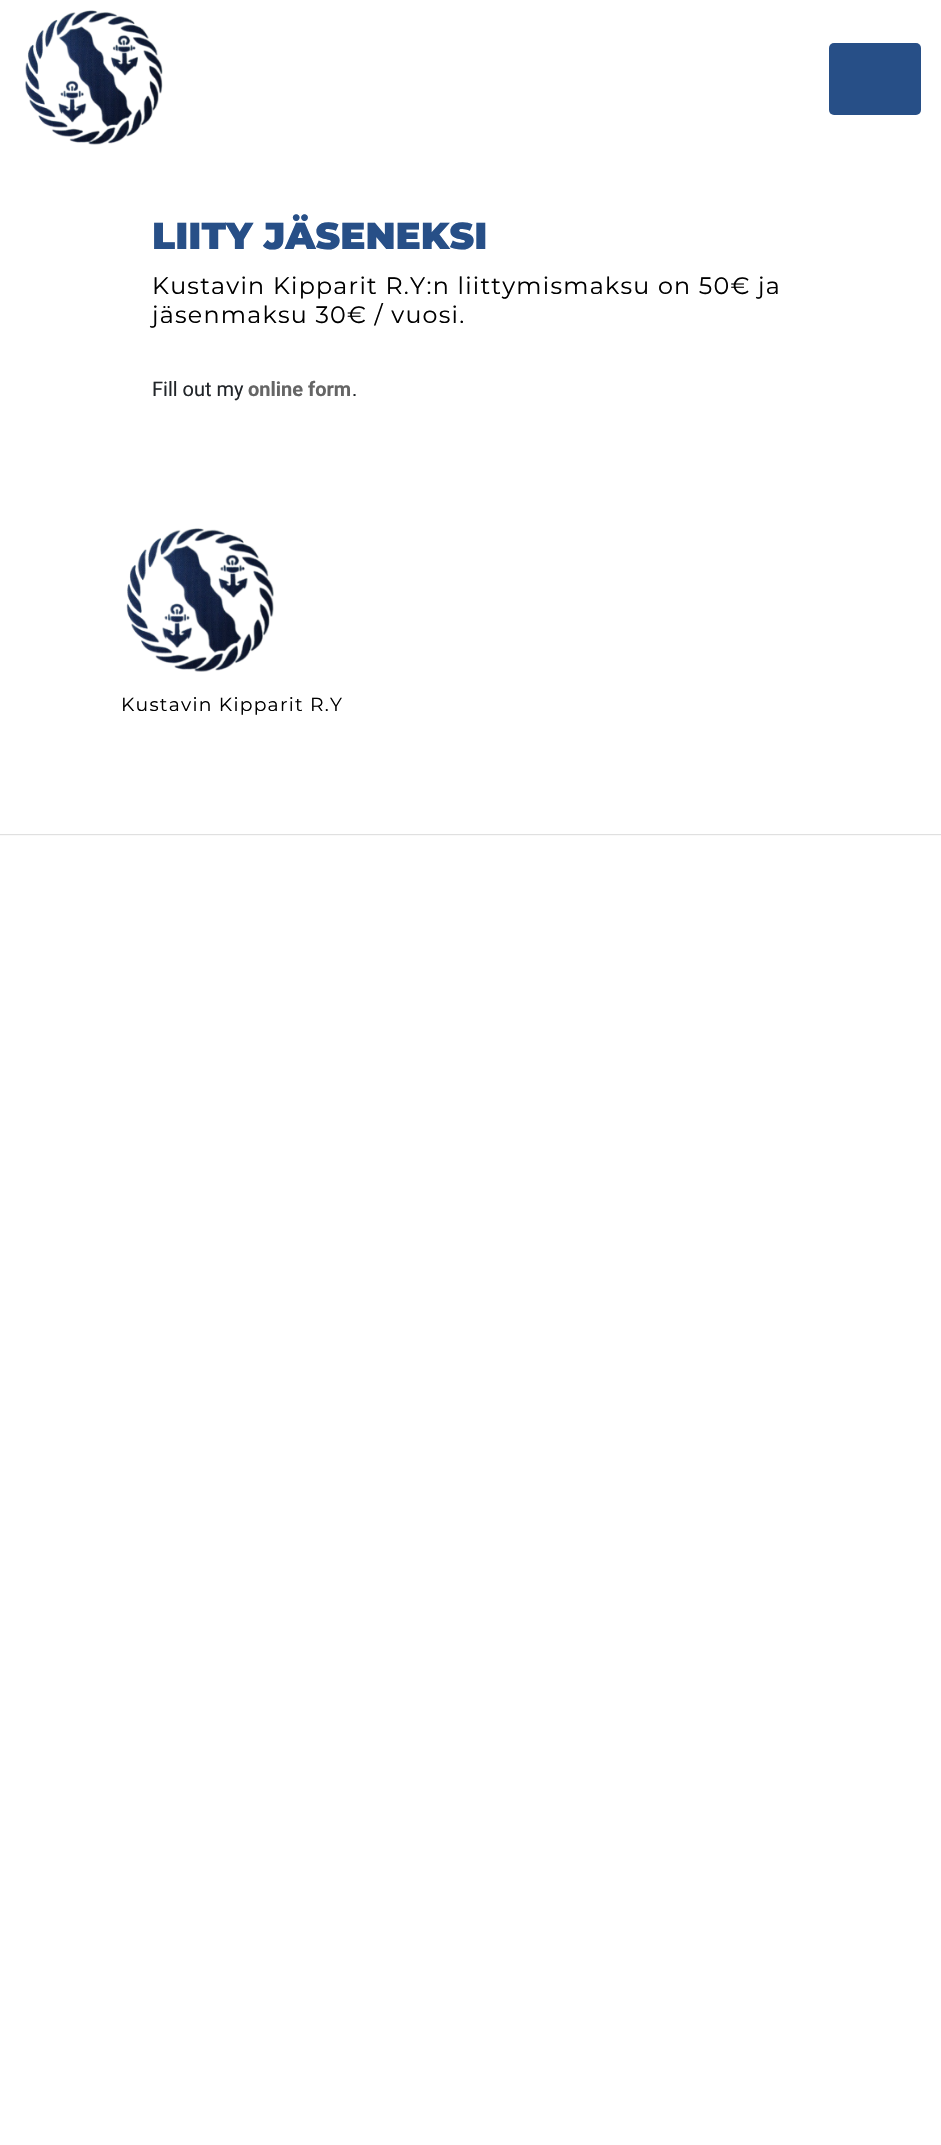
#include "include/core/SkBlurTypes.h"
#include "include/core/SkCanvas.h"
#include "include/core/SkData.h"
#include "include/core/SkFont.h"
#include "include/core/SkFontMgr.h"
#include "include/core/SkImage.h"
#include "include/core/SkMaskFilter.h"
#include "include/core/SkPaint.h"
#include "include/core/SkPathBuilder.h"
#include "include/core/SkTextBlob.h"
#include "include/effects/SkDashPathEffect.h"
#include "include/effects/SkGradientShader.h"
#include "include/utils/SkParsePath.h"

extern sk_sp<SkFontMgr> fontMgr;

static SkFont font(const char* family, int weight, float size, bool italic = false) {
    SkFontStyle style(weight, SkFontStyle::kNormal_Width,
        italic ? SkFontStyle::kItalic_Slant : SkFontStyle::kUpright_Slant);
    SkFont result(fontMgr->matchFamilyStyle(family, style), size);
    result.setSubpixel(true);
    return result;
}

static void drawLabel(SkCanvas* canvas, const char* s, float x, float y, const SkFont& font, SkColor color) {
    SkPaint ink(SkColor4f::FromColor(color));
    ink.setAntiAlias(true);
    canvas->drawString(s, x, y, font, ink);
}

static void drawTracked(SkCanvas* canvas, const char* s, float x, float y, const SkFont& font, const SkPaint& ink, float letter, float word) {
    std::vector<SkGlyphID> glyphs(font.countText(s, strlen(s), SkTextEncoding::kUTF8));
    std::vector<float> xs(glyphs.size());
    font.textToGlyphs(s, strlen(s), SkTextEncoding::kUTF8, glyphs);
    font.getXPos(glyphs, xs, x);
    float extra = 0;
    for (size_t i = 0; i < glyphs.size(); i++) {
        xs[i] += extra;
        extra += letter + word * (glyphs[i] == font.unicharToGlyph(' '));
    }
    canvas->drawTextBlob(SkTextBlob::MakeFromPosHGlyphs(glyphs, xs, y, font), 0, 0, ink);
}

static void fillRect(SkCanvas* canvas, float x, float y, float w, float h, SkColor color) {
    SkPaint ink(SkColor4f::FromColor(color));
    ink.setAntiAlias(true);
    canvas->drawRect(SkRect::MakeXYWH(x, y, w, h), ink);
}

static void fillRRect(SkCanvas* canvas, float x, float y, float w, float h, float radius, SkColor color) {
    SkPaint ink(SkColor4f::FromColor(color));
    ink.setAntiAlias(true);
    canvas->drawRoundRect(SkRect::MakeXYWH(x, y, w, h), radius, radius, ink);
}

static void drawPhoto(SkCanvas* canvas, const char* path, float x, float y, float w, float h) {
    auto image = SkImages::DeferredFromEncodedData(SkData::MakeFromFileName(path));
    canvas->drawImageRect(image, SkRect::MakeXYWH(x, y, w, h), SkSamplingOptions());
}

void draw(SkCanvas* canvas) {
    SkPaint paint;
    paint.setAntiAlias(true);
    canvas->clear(0xFFFFFFFF);
    drawPhoto(canvas, "assets/img1.png", 25, 10, 138, 135);
    fillRRect(canvas, 829, 43, 92, 72, 5, 0xFF274F87);
    SkFont font1 = font("Montserrat", 900, 37.5f);
    drawLabel(canvas, "LIITY JÄSENEKSI", 152, 249, font1, 0xFF274F87);
    SkFont font2 = font("Montserrat", 400, 23.75f);
    paint.setColor(0xFF000000);
    drawTracked(canvas, "Kustavin Kipparit R.Y:n liittymismaksu on 50€ ja", 152, 294, font2, paint, 1.25f, 0);
    drawTracked(canvas, "jäsenmaksu 30€ / vuosi.", 152, 323, font2, paint, 1.25f, 0);
    SkFont font3 = font("Roboto", 400, 20);
    drawLabel(canvas, "Fill out my", 152, 396, font3, 0xFF212529);
    SkFont font4 = font("Roboto", 700, 20);
    drawLabel(canvas, "online form", 248, 396, font4, 0xFF656565);
    drawLabel(canvas, ".", 352, 396, font3, 0xFF212529);
    paint.setColor(0x1F000000);
    paint.setMaskFilter(SkMaskFilter::MakeBlur(kNormal_SkBlurStyle, 0.5f));
    canvas->drawRect(SkRect::MakeXYWH(0, 456, 941, 379), paint);
    paint.setMaskFilter(nullptr);
    fillRect(canvas, 0, 455, 941, 379, 0xFFFFFFFF);
    drawPhoto(canvas, "assets/img2.png", 126, 528, 148, 144);
    SkFont font5 = font("Montserrat", 400, 18.75f);
    paint.setColor(0xFF000000);
    drawTracked(canvas, "Kustavin Kipparit R.Y", 121, 711, font5, paint, 1.25f, 0);
}
